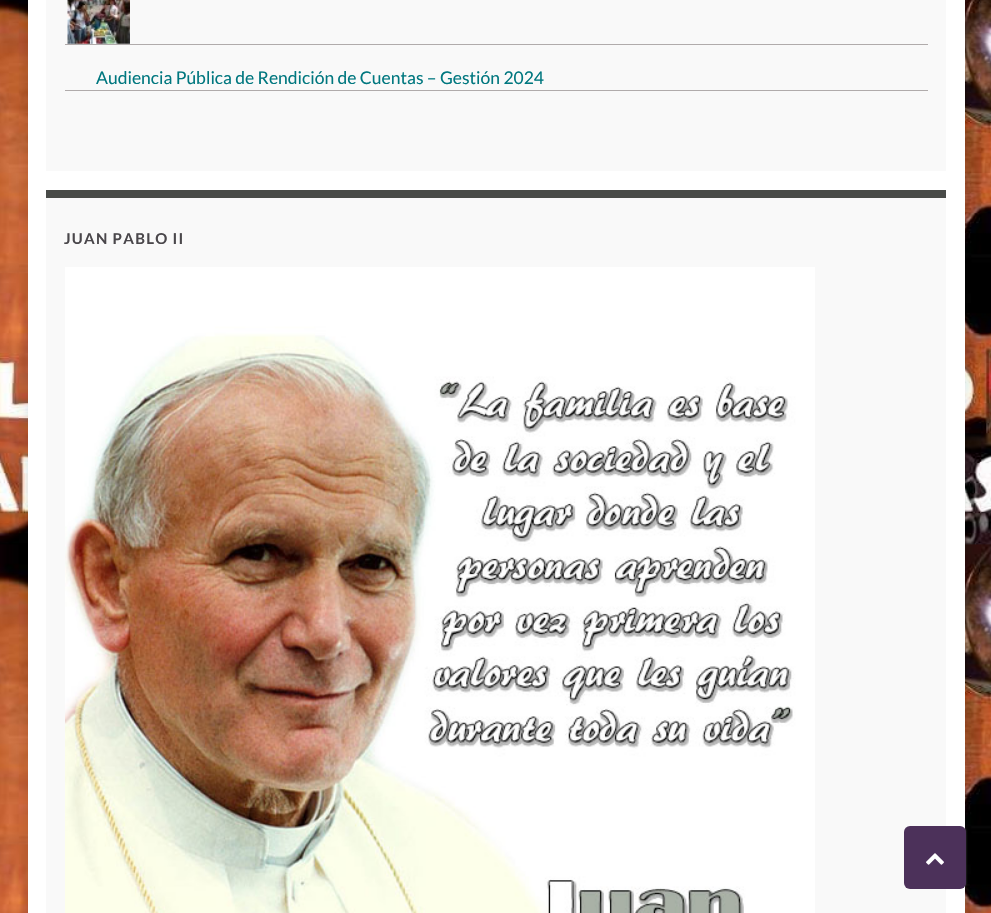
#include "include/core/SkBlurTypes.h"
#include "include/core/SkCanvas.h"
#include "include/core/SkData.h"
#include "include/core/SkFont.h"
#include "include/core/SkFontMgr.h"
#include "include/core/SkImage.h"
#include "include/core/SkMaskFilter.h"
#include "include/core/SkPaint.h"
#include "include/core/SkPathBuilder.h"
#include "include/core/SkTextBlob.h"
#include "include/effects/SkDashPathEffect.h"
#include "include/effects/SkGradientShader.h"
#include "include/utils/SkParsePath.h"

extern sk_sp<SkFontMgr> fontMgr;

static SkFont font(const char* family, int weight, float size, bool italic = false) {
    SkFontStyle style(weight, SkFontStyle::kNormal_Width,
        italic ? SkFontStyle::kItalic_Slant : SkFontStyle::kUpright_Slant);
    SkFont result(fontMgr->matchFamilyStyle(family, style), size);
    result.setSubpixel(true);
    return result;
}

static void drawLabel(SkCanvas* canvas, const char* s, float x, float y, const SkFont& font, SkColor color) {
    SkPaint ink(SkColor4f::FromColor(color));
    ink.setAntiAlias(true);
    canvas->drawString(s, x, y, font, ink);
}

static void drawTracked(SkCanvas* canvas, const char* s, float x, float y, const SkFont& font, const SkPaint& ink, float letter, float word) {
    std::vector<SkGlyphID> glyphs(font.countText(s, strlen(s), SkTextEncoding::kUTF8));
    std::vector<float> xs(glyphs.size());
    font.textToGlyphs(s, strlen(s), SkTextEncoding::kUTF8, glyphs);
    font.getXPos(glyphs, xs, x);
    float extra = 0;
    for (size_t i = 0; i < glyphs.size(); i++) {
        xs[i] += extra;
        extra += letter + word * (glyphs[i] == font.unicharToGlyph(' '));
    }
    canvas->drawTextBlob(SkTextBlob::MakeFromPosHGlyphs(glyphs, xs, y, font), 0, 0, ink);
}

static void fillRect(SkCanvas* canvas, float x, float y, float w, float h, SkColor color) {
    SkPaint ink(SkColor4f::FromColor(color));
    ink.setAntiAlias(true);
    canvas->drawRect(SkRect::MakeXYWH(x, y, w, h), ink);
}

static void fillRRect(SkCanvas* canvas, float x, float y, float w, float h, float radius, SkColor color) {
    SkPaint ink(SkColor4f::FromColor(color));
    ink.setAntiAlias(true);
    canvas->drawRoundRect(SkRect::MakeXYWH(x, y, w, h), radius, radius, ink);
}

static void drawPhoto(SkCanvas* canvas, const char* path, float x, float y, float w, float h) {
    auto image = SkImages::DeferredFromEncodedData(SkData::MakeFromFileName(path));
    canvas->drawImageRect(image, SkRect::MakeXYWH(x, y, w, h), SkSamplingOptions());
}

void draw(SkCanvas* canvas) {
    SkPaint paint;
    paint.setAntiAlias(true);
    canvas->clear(0xFFFFFFFF);
    drawPhoto(canvas, "assets/img1.png", 0, 0, 991, 913);
    paint.setColor(0x1A000000);
    paint.setMaskFilter(SkMaskFilter::MakeBlur(kNormal_SkBlurStyle, 6));
    canvas->drawRect(SkRect::MakeXYWH(28, -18, 937, 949), paint);
    paint.setMaskFilter(nullptr);
    fillRect(canvas, 28, 0, 937, 913, 0xFFFFFFFF);
    fillRect(canvas, 46, 0, 900, 171, 0xFFF9F9F9);
    fillRect(canvas, 65, 44, 863, 1, 0xFFB0ABAB);
    drawPhoto(canvas, "assets/img2.png", 67, 0, 63, 44);
    fillRect(canvas, 65, 90, 863, 1, 0xFFB0ABAB);
    SkFont font1 = font("Lato", 400, 17.5f);
    drawLabel(canvas, "Audiencia Pública de Rendición de Cuentas – Gestión 2024", 96, 84, font1, 0xFF00777F);
    fillRect(canvas, 46, 198, 900, 715, 0xFFF9F9F9);
    fillRect(canvas, 46, 190, 900, 8, 0xFF494B48);
    SkFont font2 = font("Lato", 700, 15);
    paint.setColor(0xFF4A474B);
    drawTracked(canvas, "JUAN PABLO II", 64, 244, font2, paint, 1.25f, 0);
    drawPhoto(canvas, "assets/img3.png", 65, 267, 750, 646);
    paint.setColor(0x4DFFFFFF);
    paint.setMaskFilter(SkMaskFilter::MakeBlur(kNormal_SkBlurStyle, 1));
    canvas->drawRoundRect(SkRect::MakeXYWH(904, 826, 62, 63), 6, 6, paint);
    paint.setMaskFilter(nullptr);
    fillRRect(canvas, 904, 826, 62, 63, 6, 0xFF4C315A);
    drawPhoto(canvas, "assets/img4.png", 926, 853, 18, 12);
}
